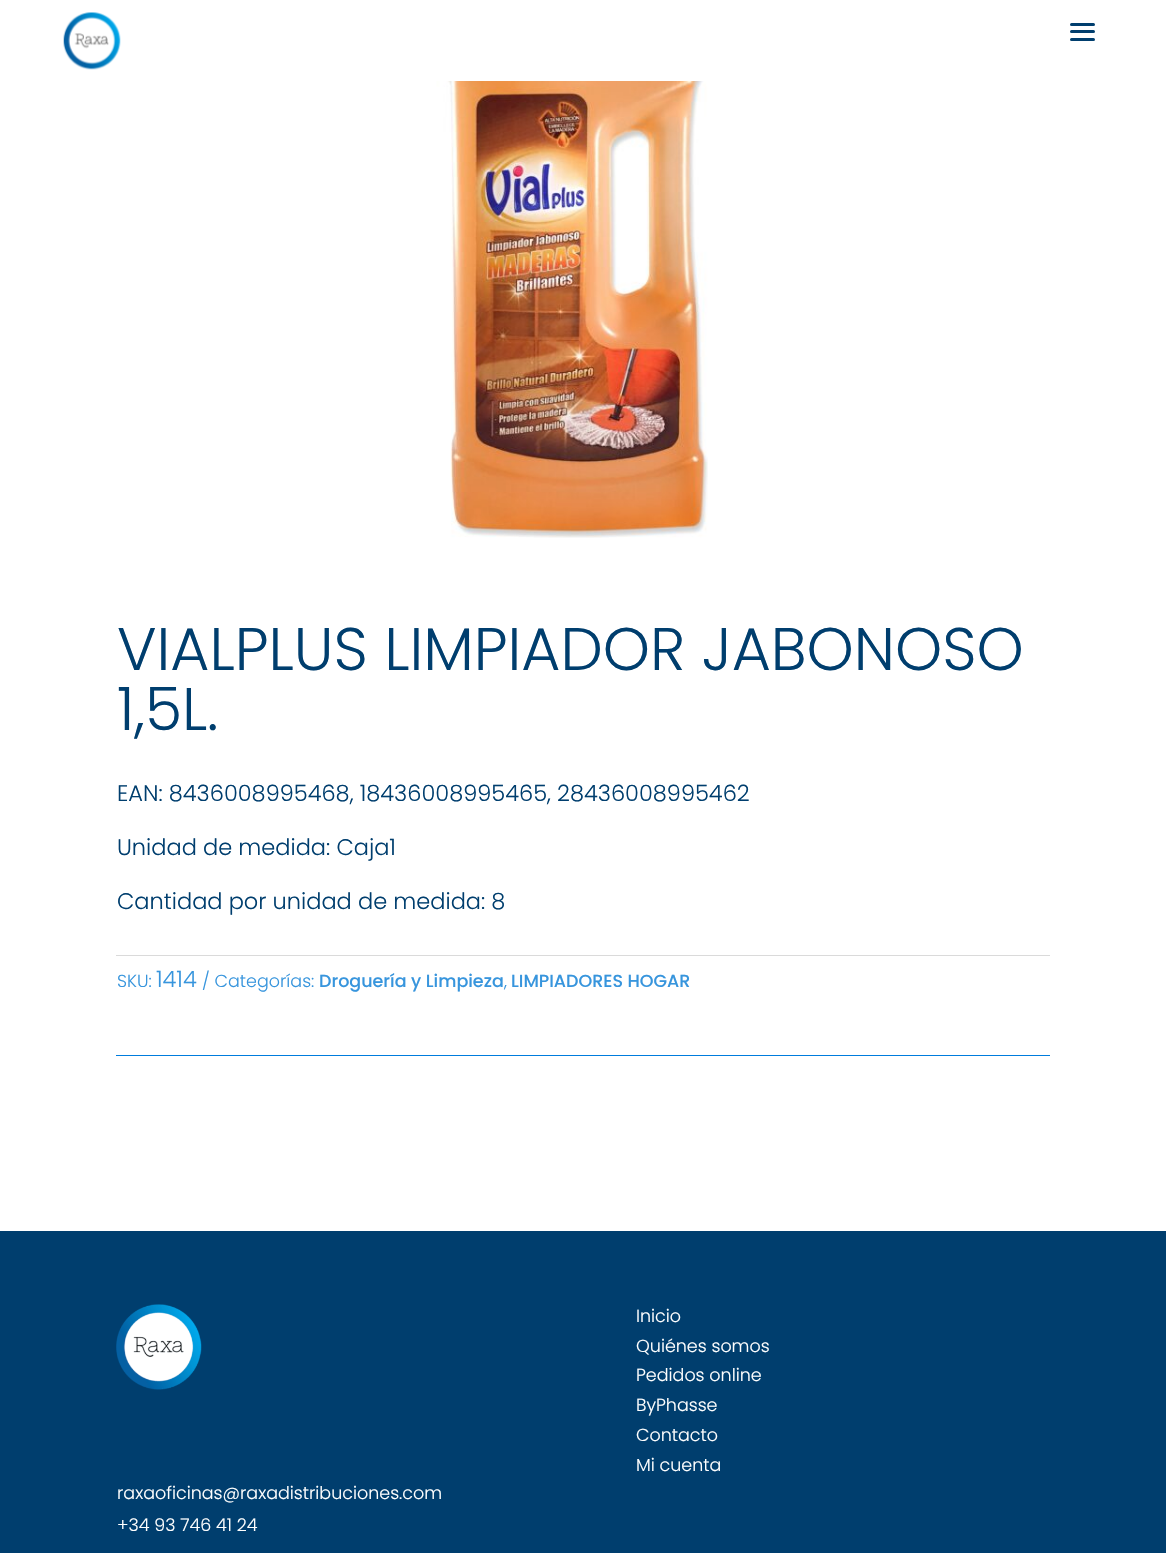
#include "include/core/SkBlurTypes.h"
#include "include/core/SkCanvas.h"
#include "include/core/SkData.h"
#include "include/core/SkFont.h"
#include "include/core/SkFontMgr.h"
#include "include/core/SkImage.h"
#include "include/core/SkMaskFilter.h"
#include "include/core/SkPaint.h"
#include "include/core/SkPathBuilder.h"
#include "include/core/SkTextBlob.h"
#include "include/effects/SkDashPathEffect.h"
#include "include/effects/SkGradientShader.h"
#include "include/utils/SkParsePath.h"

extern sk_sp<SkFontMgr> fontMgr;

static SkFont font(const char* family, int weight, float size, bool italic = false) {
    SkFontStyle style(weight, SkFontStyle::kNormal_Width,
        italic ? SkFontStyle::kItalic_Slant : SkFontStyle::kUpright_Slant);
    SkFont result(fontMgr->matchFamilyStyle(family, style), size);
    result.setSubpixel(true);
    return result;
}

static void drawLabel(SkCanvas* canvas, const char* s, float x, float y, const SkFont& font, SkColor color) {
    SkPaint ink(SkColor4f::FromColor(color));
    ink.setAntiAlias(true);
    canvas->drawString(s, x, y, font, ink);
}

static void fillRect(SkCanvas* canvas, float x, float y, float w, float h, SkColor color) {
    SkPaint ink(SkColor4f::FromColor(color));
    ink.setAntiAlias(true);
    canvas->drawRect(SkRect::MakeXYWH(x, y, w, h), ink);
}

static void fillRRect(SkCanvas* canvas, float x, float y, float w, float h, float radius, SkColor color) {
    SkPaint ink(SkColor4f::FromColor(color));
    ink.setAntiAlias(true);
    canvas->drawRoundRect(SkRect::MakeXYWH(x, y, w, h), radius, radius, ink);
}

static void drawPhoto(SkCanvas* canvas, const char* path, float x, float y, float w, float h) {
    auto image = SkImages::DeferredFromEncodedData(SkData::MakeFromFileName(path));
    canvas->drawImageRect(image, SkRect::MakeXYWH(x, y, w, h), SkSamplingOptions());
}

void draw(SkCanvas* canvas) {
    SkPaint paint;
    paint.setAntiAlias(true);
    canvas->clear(0xFFFFFFFF);
    drawPhoto(canvas, "assets/img1.png", 63, 12, 58, 58);
    fillRRect(canvas, 1070, 23, 25, 3, 1.5f, 0xFF003E6E);
    fillRRect(canvas, 1070, 30, 25, 3, 1.5f, 0xFF003E6E);
    fillRRect(canvas, 1070, 38, 25, 3, 1.5f, 0xFF003E6E);
    drawPhoto(canvas, "assets/img2.png", 436, 81, 272, 457);
    SkFont font1 = font("Poppins", 300, 60);
    drawLabel(canvas, "VIALPLUS LIMPIADOR JABONOSO", 117, 670, font1, 0xFF003E6E);
    drawLabel(canvas, "1,5L.", 117, 730, font1, 0xFF003E6E);
    SkFont font2 = font("Poppins", 300, 22.5f);
    drawLabel(canvas, "EAN: 8436008995468, 18436008995465, 28436008995462", 117, 801, font2, 0xFF003E6E);
    drawLabel(canvas, "Unidad de medida: Caja1", 117, 855, font2, 0xFF003E6E);
    drawLabel(canvas, "Cantidad por unidad de medida: 8", 117, 909, font2, 0xFF003E6E);
    fillRect(canvas, 116, 955, 934, 1, 0xFFDADADA);
    SkFont font3 = font("Poppins", 300, 17.5f);
    drawLabel(canvas, "SKU:", 117, 987, font3, 0xFF3795DD);
    drawLabel(canvas, "1414", 156, 987, font2, 0xFF3795DD);
    drawLabel(canvas, "/ Categorías:", 202, 987, font3, 0xFF3795DD);
    SkFont font4 = font("Poppins", 500, 17.5f);
    drawLabel(canvas, "Droguería y Limpieza", 319, 987, font4, 0xFF3795DD);
    drawLabel(canvas, ",", 504, 987, font3, 0xFF3795DD);
    drawLabel(canvas, "LIMPIADORES HOGAR", 511, 987, font4, 0xFF3795DD);
    fillRect(canvas, 116, 1055, 934, 1, 0xFF007CDD);
    fillRect(canvas, 0, 1231, 1166, 322, 0xFF003E6E);
    drawLabel(canvas, "Inicio", 636, 1322, font3, 0xFFFFFFFF);
    drawLabel(canvas, "Quiénes somos", 636, 1352, font3, 0xFFFFFFFF);
    drawLabel(canvas, "Pedidos online", 636, 1381, font3, 0xFFFFFFFF);
    drawLabel(canvas, "ByPhasse", 636, 1411, font3, 0xFFFFFFFF);
    drawLabel(canvas, "Contacto", 636, 1441, font3, 0xFFFFFFFF);
    drawLabel(canvas, "Mi cuenta", 636, 1471, font3, 0xFFFFFFFF);
    drawPhoto(canvas, "assets/img3.png", 116, 1304, 86, 86);
    drawLabel(canvas, "raxaoficinas@raxadistribuciones.com", 117, 1499, font3, 0xFFFFFFFF);
    drawLabel(canvas, "+34 93 746 41 24", 117, 1531, font3, 0xFFFFFFFF);
}
